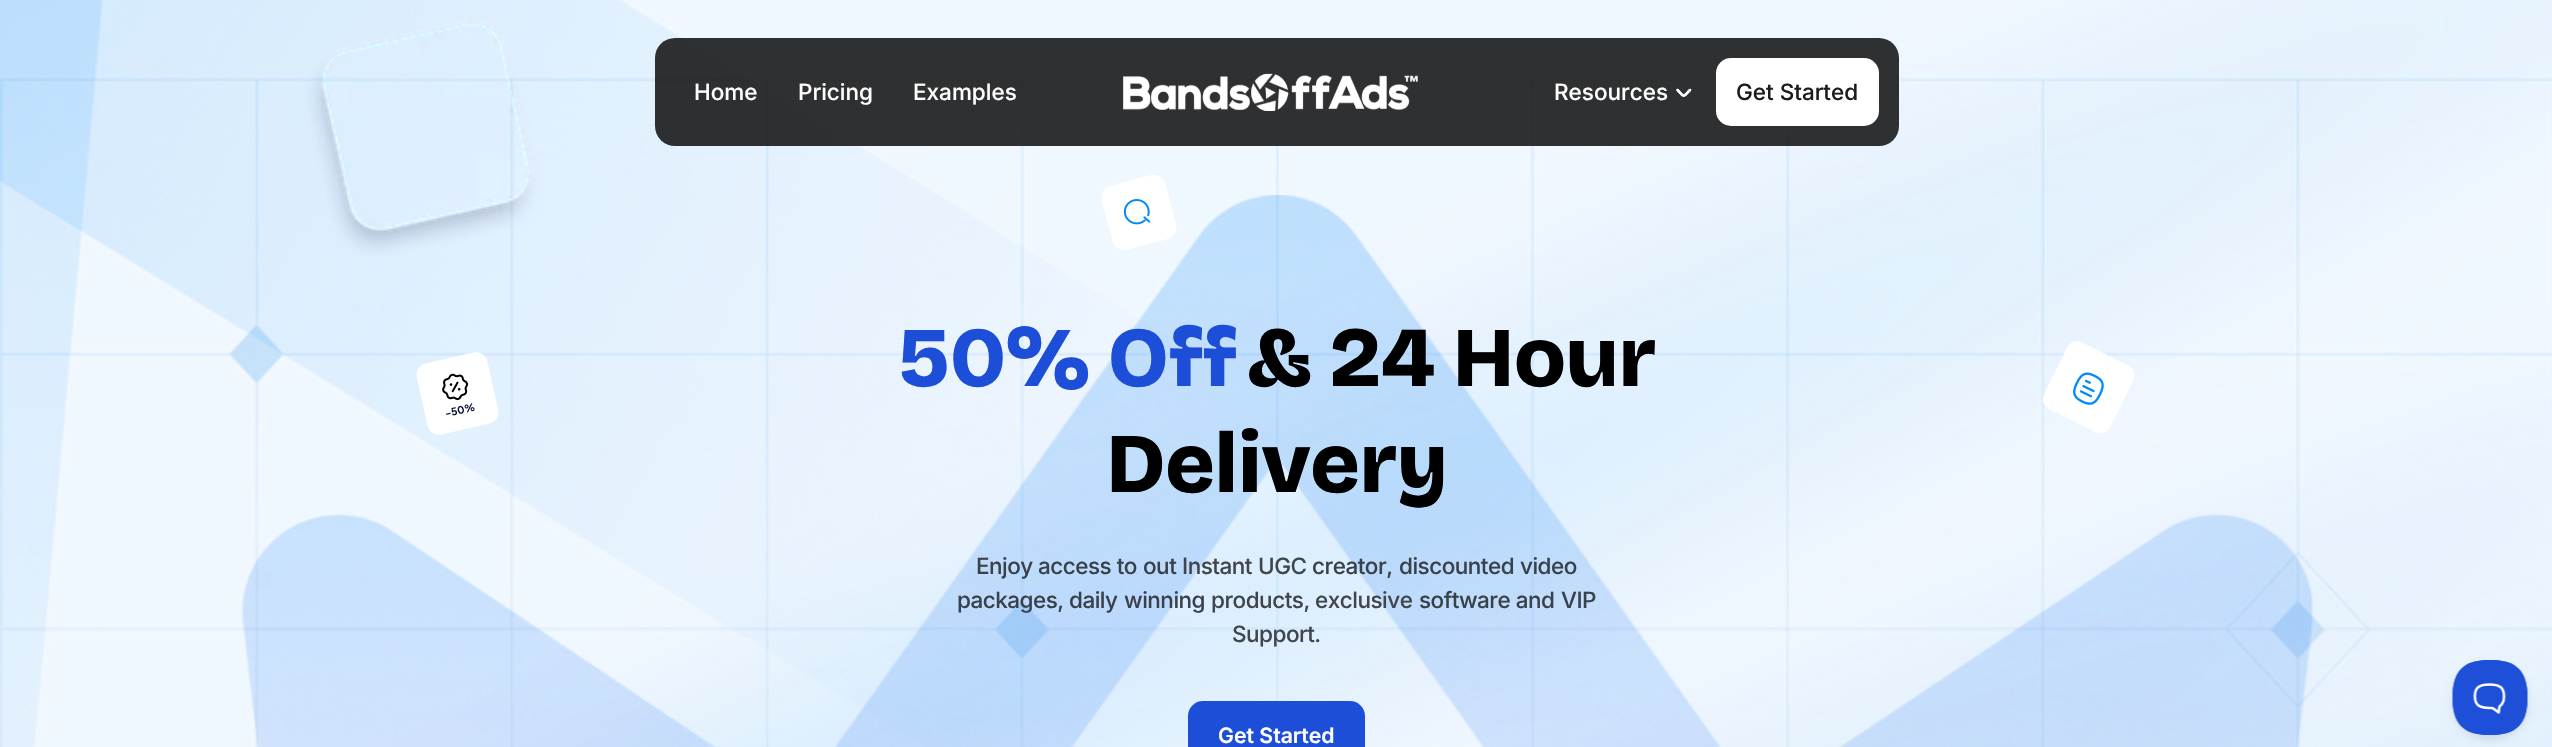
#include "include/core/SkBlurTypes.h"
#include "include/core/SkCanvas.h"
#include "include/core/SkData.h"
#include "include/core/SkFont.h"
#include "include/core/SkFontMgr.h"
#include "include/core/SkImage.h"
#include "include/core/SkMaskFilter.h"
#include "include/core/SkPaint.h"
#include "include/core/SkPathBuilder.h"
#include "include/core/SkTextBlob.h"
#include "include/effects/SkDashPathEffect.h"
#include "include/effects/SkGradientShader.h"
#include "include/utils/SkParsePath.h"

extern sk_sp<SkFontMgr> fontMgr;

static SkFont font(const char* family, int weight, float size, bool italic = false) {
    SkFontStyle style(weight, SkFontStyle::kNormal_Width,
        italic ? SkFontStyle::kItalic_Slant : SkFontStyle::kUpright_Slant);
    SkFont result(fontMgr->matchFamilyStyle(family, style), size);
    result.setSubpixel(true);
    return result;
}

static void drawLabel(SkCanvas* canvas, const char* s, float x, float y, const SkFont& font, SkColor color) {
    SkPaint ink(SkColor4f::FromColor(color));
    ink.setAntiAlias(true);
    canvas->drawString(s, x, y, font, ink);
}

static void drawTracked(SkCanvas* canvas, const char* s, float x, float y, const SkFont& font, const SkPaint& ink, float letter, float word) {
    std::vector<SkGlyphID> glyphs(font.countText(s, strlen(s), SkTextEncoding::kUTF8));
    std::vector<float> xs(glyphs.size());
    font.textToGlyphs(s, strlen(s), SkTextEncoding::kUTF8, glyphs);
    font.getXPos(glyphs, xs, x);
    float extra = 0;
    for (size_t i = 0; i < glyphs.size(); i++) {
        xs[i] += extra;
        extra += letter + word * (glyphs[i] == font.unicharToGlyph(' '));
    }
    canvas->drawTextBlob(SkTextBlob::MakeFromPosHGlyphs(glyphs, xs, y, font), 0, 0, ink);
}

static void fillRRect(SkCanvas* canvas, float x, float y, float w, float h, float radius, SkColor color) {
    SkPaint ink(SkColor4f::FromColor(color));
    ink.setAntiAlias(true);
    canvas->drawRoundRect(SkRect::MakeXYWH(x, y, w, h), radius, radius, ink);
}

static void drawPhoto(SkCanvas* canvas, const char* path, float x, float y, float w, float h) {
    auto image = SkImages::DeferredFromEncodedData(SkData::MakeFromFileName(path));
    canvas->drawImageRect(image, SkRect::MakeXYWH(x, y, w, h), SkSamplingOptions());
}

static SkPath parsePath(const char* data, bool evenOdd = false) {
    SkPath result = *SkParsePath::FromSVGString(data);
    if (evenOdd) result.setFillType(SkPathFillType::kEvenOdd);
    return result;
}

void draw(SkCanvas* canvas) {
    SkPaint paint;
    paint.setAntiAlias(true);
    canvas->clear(0xFFFFFFFF);
    drawPhoto(canvas, "assets/img2.png", 0, 0, 2552, 747);
    fillRRect(canvas, 655, 38, 1244, 108, 20, 0xD90D0D0D);
    SkFont font1 = font("Inter", 500, 22.5f);
    drawLabel(canvas, "Home", 694, 100, font1, 0xFFFFFFFF);
    drawLabel(canvas, "Pricing", 798, 100, font1, 0xFFFFFFFF);
    drawLabel(canvas, "Examples", 913, 100, font1, 0xFFFFFFFF);
    drawPhoto(canvas, "assets/img1.png", 1123, 73, 295, 38);
    drawLabel(canvas, "Resources", 1554, 100, font1, 0xFFFFFFFF);
    paint.setStroke(true);
    paint.setStrokeWidth(2.5f);
    paint.setStrokeCap(SkPaint::kRound_Cap);
    paint.setStrokeJoin(SkPaint::kRound_Join);
    paint.setColor(0xFFA19F9F);
    canvas->drawPath(parsePath("M1677.5 90C1685 97.5 1682.5 97.5 1690 90"), paint);
    paint.setColor(0xFFFFFFFF);
    canvas->drawPath(parsePath("M1677.5 90C1685 97.5 1682.5 97.5 1690 90"), paint);
    fillRRect(canvas, 1716, 58, 163, 68, 15, 0xFFFFFFFF);
    drawLabel(canvas, "Get Started", 1736, 100, font1, 0xFF1C1C1C);
    drawPhoto(canvas, "assets/img3.png", 241, 195, 2072, 552);
    drawPhoto(canvas, "assets/img4.png", 1101, 175, 76, 75);
    drawPhoto(canvas, "assets/img5.png", 416, 352, 83, 83);
    SkFont font2 = font("Bricolage Grotesque", 800, 85);
    paint.setStroke(false);
    paint.setColor(0xFF1C4ED8);
    drawTracked(canvas, "50% Off", 898, 386, font2, paint, -0.75f, 0);
    paint.setColor(0xFF000000);
    drawTracked(canvas, "& 24 Hour", 1248, 386, font2, paint, -0.75f, 0);
    drawTracked(canvas, "Delivery", 1106, 492, font2, paint, -0.75f, 0);
    drawPhoto(canvas, "assets/img6.png", 2043, 341, 92, 93);
    paint.setColor(0xFF39424B);
    drawTracked(canvas, "Enjoy", 976, 574, font1, paint, -0.5f, 0);
    drawTracked(canvas, "access to", 1038, 574, font1, paint, -0.5f, 0);
    drawTracked(canvas, "out", 1143, 574, font1, paint, -0.5f, 0);
    paint.setColor(0xFF40464C);
    drawTracked(canvas, "Instant", 1182, 574, font1, paint, -0.5f, 0);
    drawTracked(canvas, "UGC", 1258, 574, font1, paint, -0.5f, 0);
    paint.setColor(0xFF39424B);
    drawTracked(canvas, "creator,", 1312, 574, font1, paint, -0.5f, 0);
    drawTracked(canvas, "discounted", 1399, 574, font1, paint, -0.5f, 0);
    drawTracked(canvas, "video", 1520, 574, font1, paint, -0.5f, 0);
    drawTracked(canvas, "packages,", 957, 608, font1, paint, -0.5f, 0);
    drawTracked(canvas, "daily", 1069, 608, font1, paint, -0.5f, 0);
    drawTracked(canvas, "winning", 1124, 608, font1, paint, -0.5f, 0);
    paint.setColor(0xFF40464C);
    drawTracked(canvas, "products,", 1211, 608, font1, paint, -0.5f, 0);
    drawTracked(canvas, "exclusive", 1315, 608, font1, paint, -0.5f, 0);
    paint.setColor(0xFF39424B);
    drawTracked(canvas, "software and", 1419, 608, font1, paint, -0.5f, 0);
    drawTracked(canvas, "VIP", 1561, 608, font1, paint, -0.5f, 0);
    paint.setColor(0xFF40464C);
    drawTracked(canvas, "Support.", 1232, 642, font1, paint, -0.5f, 0);
    fillRRect(canvas, 1188, 701, 177, 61, 15, 0xFF1C4ED8);
    SkFont font3 = font("Inter", 600, 21.25f);
    drawLabel(canvas, "Get Started", 1218, 743, font3, 0xFFFFFFFF);
    paint.setColor(0x1A000000);
    paint.setMaskFilter(SkMaskFilter::MakeBlur(kNormal_SkBlurStyle, 4.5f));
    canvas->drawRoundRect(SkRect::MakeXYWH(2453, 665, 75, 75), 37.5f, 37.5f, paint);
    paint.setMaskFilter(nullptr);
    drawPhoto(canvas, "assets/img7.png", 2452, 660, 76, 75);
}
